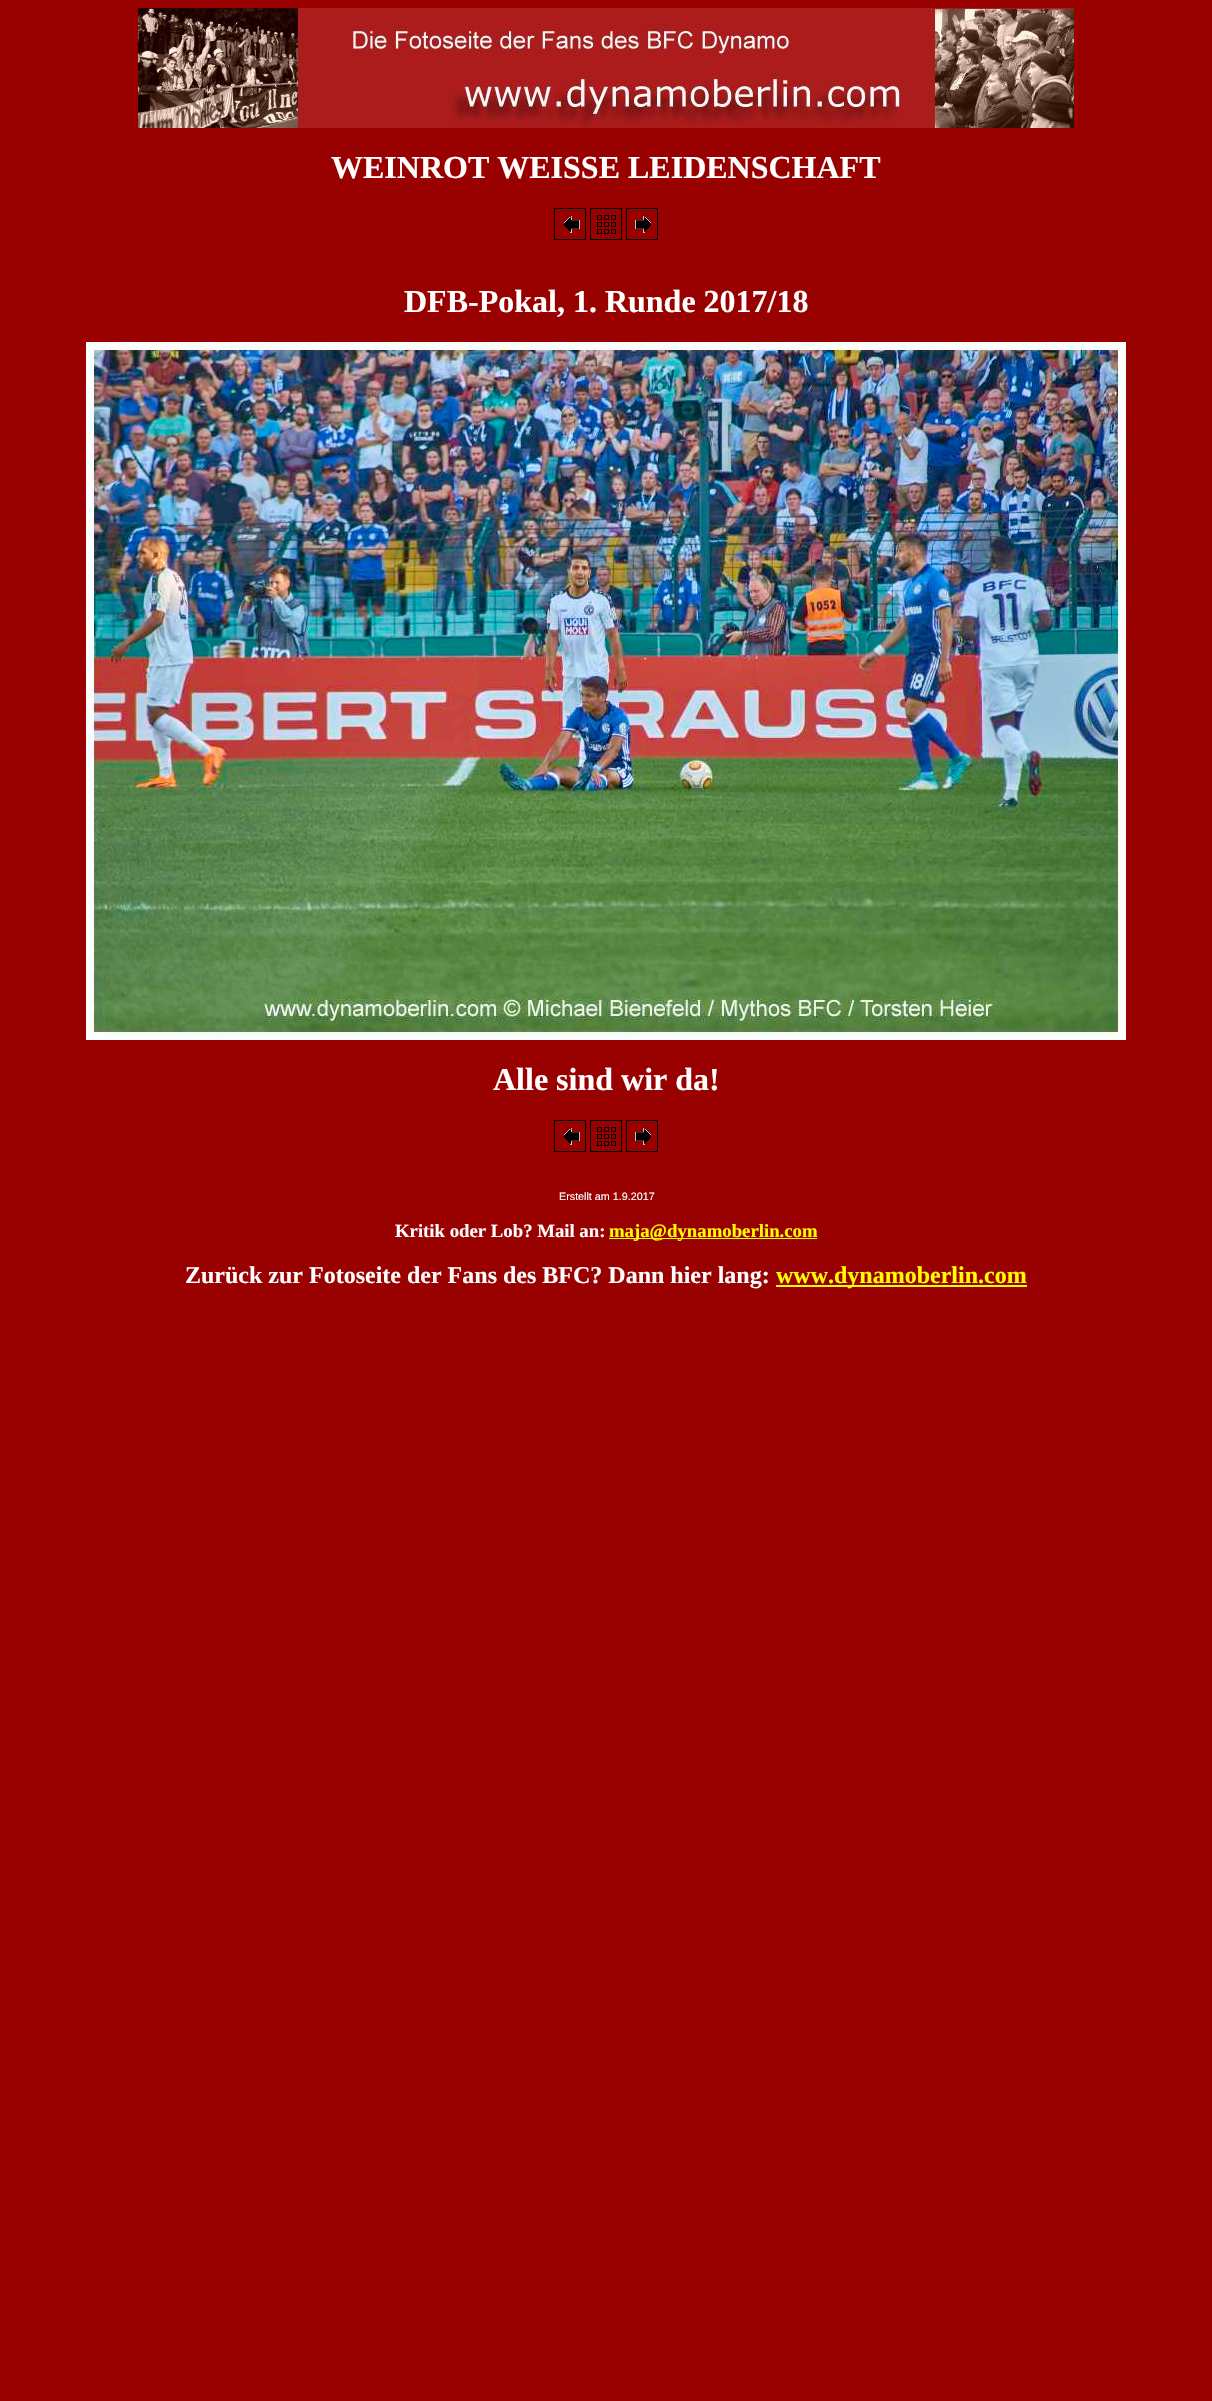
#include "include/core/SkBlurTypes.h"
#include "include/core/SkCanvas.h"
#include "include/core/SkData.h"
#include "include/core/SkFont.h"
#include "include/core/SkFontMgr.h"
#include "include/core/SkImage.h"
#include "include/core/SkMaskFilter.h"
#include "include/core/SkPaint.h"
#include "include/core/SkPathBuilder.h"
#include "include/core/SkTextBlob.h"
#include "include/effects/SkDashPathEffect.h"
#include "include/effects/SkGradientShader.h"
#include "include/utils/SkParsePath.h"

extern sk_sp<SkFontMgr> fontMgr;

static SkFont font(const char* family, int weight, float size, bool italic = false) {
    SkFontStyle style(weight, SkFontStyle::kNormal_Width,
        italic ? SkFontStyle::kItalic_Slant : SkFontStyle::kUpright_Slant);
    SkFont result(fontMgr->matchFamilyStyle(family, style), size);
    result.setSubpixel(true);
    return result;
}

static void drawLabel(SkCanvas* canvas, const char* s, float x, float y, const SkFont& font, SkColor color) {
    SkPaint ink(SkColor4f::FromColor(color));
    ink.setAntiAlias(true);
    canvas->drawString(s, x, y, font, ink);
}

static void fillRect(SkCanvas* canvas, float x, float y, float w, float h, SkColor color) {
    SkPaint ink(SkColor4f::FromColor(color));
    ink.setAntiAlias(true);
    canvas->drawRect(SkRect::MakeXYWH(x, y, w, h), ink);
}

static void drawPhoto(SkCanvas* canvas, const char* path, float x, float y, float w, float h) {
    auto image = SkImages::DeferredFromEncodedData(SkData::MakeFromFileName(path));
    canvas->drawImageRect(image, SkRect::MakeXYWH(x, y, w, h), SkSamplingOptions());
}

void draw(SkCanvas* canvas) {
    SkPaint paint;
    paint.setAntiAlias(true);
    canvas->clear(0xFF990000);
    drawPhoto(canvas, "assets/img1.png", 138, 8, 936, 120);
    SkFont font1 = font("Liberation Serif", 700, 32);
    drawLabel(canvas, "WEINROT WEISSE LEIDENSCHAFT", 331, 178, font1, 0xFFFFFFFF);
    drawPhoto(canvas, "assets/img2.png", 554, 208, 32, 32);
    drawPhoto(canvas, "assets/img3.png", 590, 208, 32, 32);
    drawPhoto(canvas, "assets/img4.png", 626, 208, 32, 32);
    drawLabel(canvas, "DFB-Pokal, 1. Runde 2017/18", 404, 312, font1, 0xFFFFFFFF);
    drawPhoto(canvas, "assets/img5.png", 86, 342, 1040, 698);
    drawLabel(canvas, "Alle sind wir da!", 493, 1090, font1, 0xFFFFFFFF);
    drawPhoto(canvas, "assets/img2.png", 554, 1120, 32, 32);
    drawPhoto(canvas, "assets/img3.png", 590, 1120, 32, 32);
    drawPhoto(canvas, "assets/img4.png", 626, 1120, 32, 32);
    SkFont font2 = font("Liberation Sans", 400, 10.75f);
    drawLabel(canvas, "Erstellt am 1.9.2017", 559, 1200, font2, 0xFFFFFFFF);
    SkFont font3 = font("Liberation Serif", 700, 18.75f);
    drawLabel(canvas, "Kritik oder Lob? Mail an:", 395, 1237, font3, 0xFFFFFFFF);
    fillRect(canvas, 609, 1238, 208, 1, 0xFFFFFF00);
    drawLabel(canvas, "maja@dynamoberlin.com", 609, 1237, font3, 0xFFFFFF00);
    SkFont font4 = font("Liberation Serif", 700, 24);
    drawLabel(canvas, "Zurück zur Fotoseite der Fans des BFC? Dann hier lang:", 185, 1283, font4, 0xFFFFFFFF);
    fillRect(canvas, 776, 1285, 251, 2, 0xFFFFFF00);
    drawLabel(canvas, "www.dynamoberlin.com", 776, 1283, font4, 0xFFFFFF00);
}
